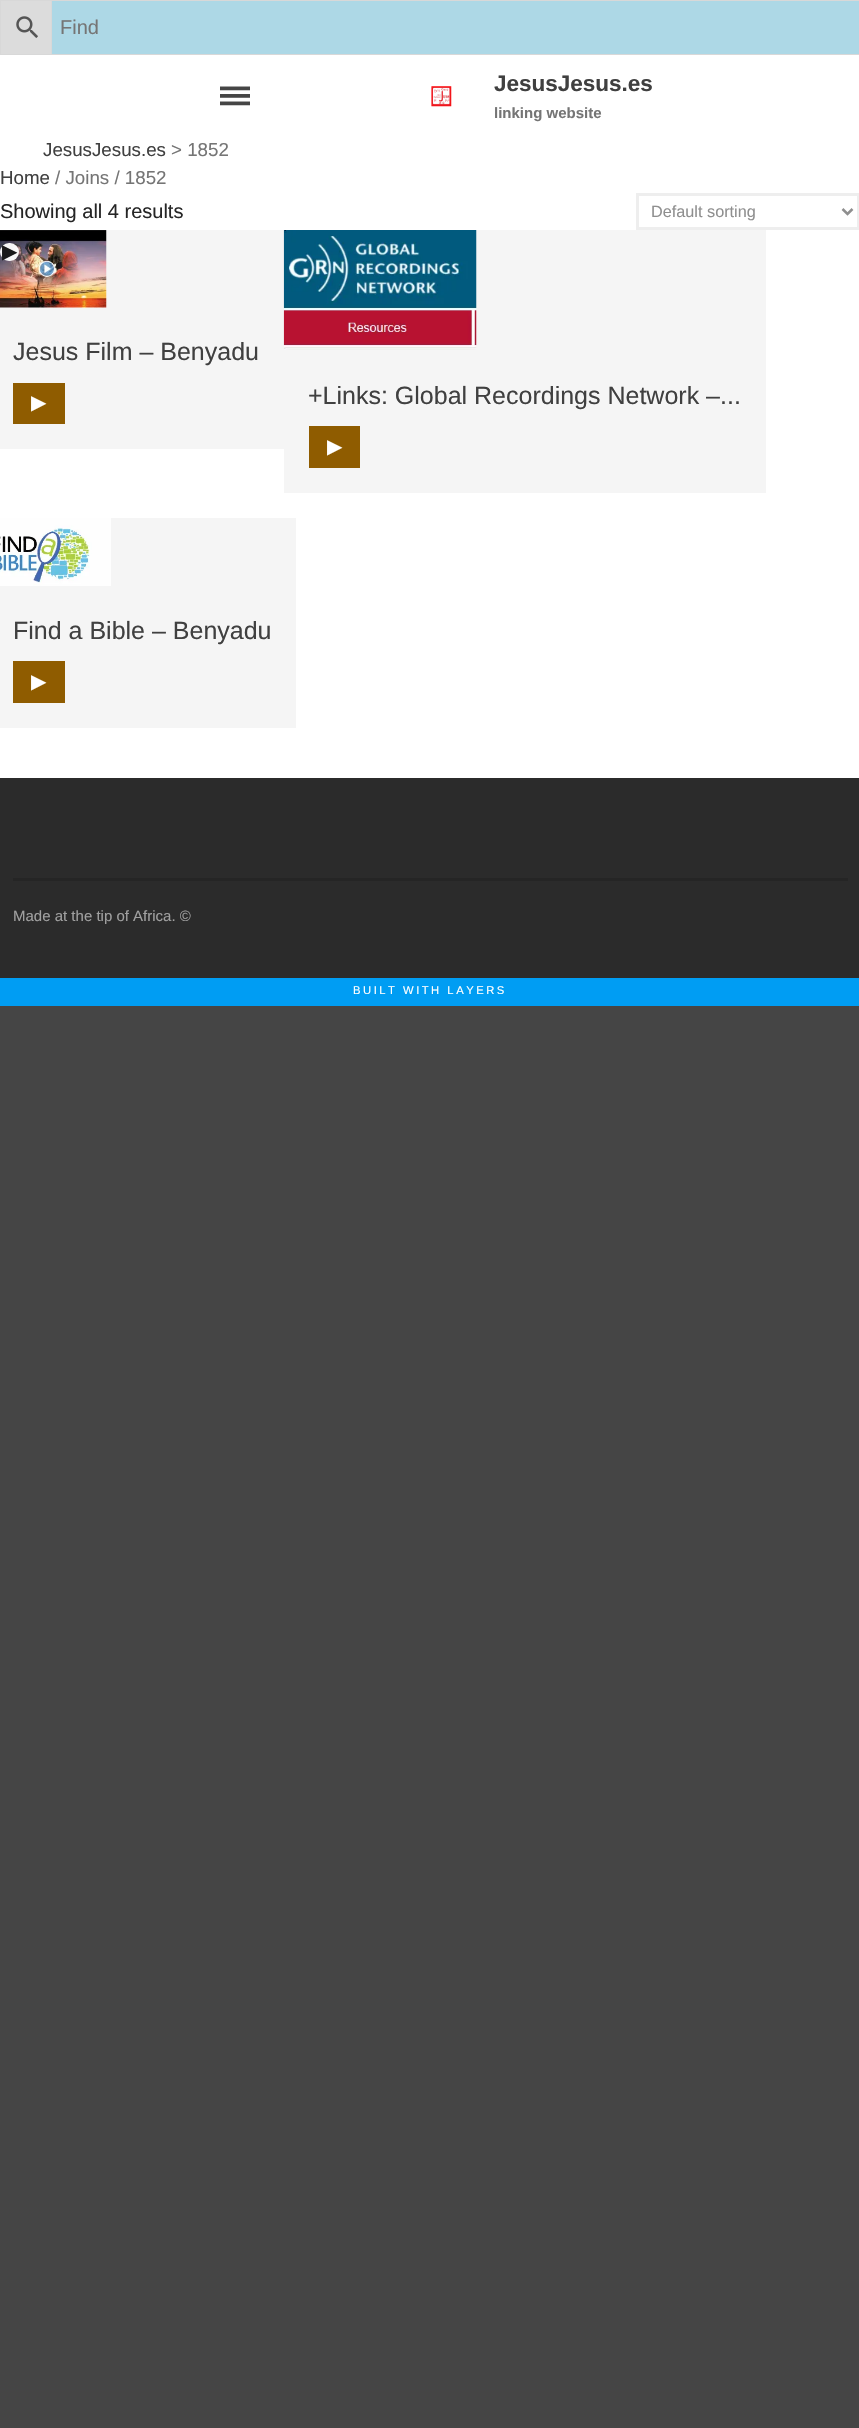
#include "include/core/SkBlurTypes.h"
#include "include/core/SkCanvas.h"
#include "include/core/SkData.h"
#include "include/core/SkFont.h"
#include "include/core/SkFontMgr.h"
#include "include/core/SkImage.h"
#include "include/core/SkMaskFilter.h"
#include "include/core/SkPaint.h"
#include "include/core/SkPathBuilder.h"
#include "include/core/SkTextBlob.h"
#include "include/effects/SkDashPathEffect.h"
#include "include/effects/SkGradientShader.h"
#include "include/utils/SkParsePath.h"

extern sk_sp<SkFontMgr> fontMgr;

static SkFont font(const char* family, int weight, float size, bool italic = false) {
    SkFontStyle style(weight, SkFontStyle::kNormal_Width,
        italic ? SkFontStyle::kItalic_Slant : SkFontStyle::kUpright_Slant);
    SkFont result(fontMgr->matchFamilyStyle(family, style), size);
    result.setSubpixel(true);
    return result;
}

static void drawLabel(SkCanvas* canvas, const char* s, float x, float y, const SkFont& font, SkColor color) {
    SkPaint ink(SkColor4f::FromColor(color));
    ink.setAntiAlias(true);
    canvas->drawString(s, x, y, font, ink);
}

static void drawTracked(SkCanvas* canvas, const char* s, float x, float y, const SkFont& font, const SkPaint& ink, float letter, float word) {
    std::vector<SkGlyphID> glyphs(font.countText(s, strlen(s), SkTextEncoding::kUTF8));
    std::vector<float> xs(glyphs.size());
    font.textToGlyphs(s, strlen(s), SkTextEncoding::kUTF8, glyphs);
    font.getXPos(glyphs, xs, x);
    float extra = 0;
    for (size_t i = 0; i < glyphs.size(); i++) {
        xs[i] += extra;
        extra += letter + word * (glyphs[i] == font.unicharToGlyph(' '));
    }
    canvas->drawTextBlob(SkTextBlob::MakeFromPosHGlyphs(glyphs, xs, y, font), 0, 0, ink);
}

static void fillRect(SkCanvas* canvas, float x, float y, float w, float h, SkColor color) {
    SkPaint ink(SkColor4f::FromColor(color));
    ink.setAntiAlias(true);
    canvas->drawRect(SkRect::MakeXYWH(x, y, w, h), ink);
}

static void fillRRect(SkCanvas* canvas, float x, float y, float w, float h, float radius, SkColor color) {
    SkPaint ink(SkColor4f::FromColor(color));
    ink.setAntiAlias(true);
    canvas->drawRoundRect(SkRect::MakeXYWH(x, y, w, h), radius, radius, ink);
}

static void drawPhoto(SkCanvas* canvas, const char* path, float x, float y, float w, float h) {
    auto image = SkImages::DeferredFromEncodedData(SkData::MakeFromFileName(path));
    canvas->drawImageRect(image, SkRect::MakeXYWH(x, y, w, h), SkSamplingOptions());
}

static SkPath parsePath(const char* data, bool evenOdd = false) {
    SkPath result = *SkParsePath::FromSVGString(data);
    if (evenOdd) result.setFillType(SkPathFillType::kEvenOdd);
    return result;
}

void draw(SkCanvas* canvas) {
    SkPaint paint;
    paint.setAntiAlias(true);
    canvas->clear(0xFF454545);
    fillRect(canvas, 1, 1, 50, 53, 0xFFDCDCDC);
    paint.setStroke(true);
    paint.setStrokeWidth(1);
    paint.setColor(0xFFD8D8D8);
    canvas->drawRect(SkRect::MakeXYWH(0.5f, 0.5f, 52, 54), paint);
    drawPhoto(canvas, "assets/img1.png", 16, 16, 22, 22);
    paint.setStroke(false);
    paint.setColor(0xFFADD8E6);
    canvas->drawRect(SkRect::MakeXYWH(51.5f, 0.5f, 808, 54), paint);
    paint.setStroke(true);
    paint.setColor(0xFFD8D8D8);
    canvas->drawRect(SkRect::MakeXYWH(51.5f, 0.5f, 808, 54), paint);
    SkFont font1 = font("Liberation Sans", 400, 20);
    drawLabel(canvas, "Find", 60, 34, font1, 0xFF757575);
    fillRect(canvas, 0, 55, 859, 723, 0xFFFFFFFF);
    drawPhoto(canvas, "assets/img2.png", 220, 86, 30, 20);
    drawPhoto(canvas, "assets/img3.png", 431, 86, 21, 21);
    SkFont font2 = font("Liberation Sans", 700, 22.5f);
    drawLabel(canvas, "JesusJesus.es", 494, 91, font2, 0xFF404040);
    SkFont font3 = font("Liberation Sans", 700, 15);
    drawLabel(canvas, "linking website", 494, 118, font3, 0xFF757575);
    SkFont font4 = font("Liberation Sans", 400, 18.75f);
    drawLabel(canvas, "JesusJesus.es", 43, 156, font4, 0xFF404040);
    drawLabel(canvas, "> 1852", 171, 156, font4, 0xFF757575);
    drawLabel(canvas, "Home", 0, 184, font4, 0xFF404040);
    drawLabel(canvas, "/ Joins / 1852", 55, 184, font4, 0xFF757575);
    drawLabel(canvas, "Showing all 4 results", 0, 218, font1, 0xFF262626);
    paint.setStrokeWidth(3);
    paint.setColor(0xFFEEEEEE);
    canvas->drawRect(SkRect::MakeXYWH(637.5f, 194.5f, 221, 34), paint);
    paint.setStrokeWidth(2.5f);
    paint.setColor(0xFF8F8F8F);
    canvas->drawPath(parsePath("M842.5 209L847.5 214L852.5 209"), paint);
    SkFont font5 = font("Liberation Sans", 400, 16.25f);
    drawLabel(canvas, "Default sorting", 651, 217, font5, 0xFF8F8F8F);
    fillRect(canvas, 0, 230, 284, 219, 0xFFF5F5F5);
    drawPhoto(canvas, "assets/img4.png", 0, 230, 107, 78);
    fillRRect(canvas, 0, 243, 19, 18, 9, 0xF2FFFFFF);
    SkFont font6 = font("DejaVu Sans", 400, 20);
    drawLabel(canvas, "▶", 2, 258, font6, 0xFF19191A);
    SkFont font7 = font("Liberation Sans", 400, 25);
    drawLabel(canvas, "Jesus Film – Benyadu", 13, 360, font7, 0xFF404040);
    fillRect(canvas, 13, 383, 52, 41, 0xFF8F5C00);
    SkFont font8 = font("DejaVu Sans", 700, 18.75f);
    drawLabel(canvas, "▶", 31, 409, font8, 0xFFFFFFFF);
    fillRect(canvas, 284, 230, 482, 263, 0xFFF5F5F5);
    drawPhoto(canvas, "assets/img5.png", 283, 230, 194, 120);
    drawLabel(canvas, "+Links: Global Recordings Network –...", 308, 404, font7, 0xFF404040);
    fillRect(canvas, 309, 426, 51, 42, 0xFF8F5C00);
    drawLabel(canvas, "▶", 327, 453, font8, 0xFFFFFFFF);
    fillRect(canvas, 0, 518, 296, 210, 0xFFF5F5F5);
    drawPhoto(canvas, "assets/img6.png", 0, 518, 111, 68);
    drawLabel(canvas, "Find a Bible – Benyadu", 13, 639, font7, 0xFF404040);
    fillRect(canvas, 13, 661, 52, 42, 0xFF8F5C00);
    drawLabel(canvas, "▶", 31, 688, font8, 0xFFFFFFFF);
    fillRect(canvas, 0, 778, 859, 200, 0xFF2B2B2B);
    fillRect(canvas, 13, 878, 835, 3, 0xFF252525);
    SkFont font9 = font("Liberation Sans", 400, 15);
    drawLabel(canvas, "Made at the tip of Africa. ©", 13, 921, font9, 0xFFA0A0A0);
    fillRect(canvas, 0, 978, 859, 28, 0xFF009DF3);
    SkFont font10 = font("Liberation Sans", 400, 11.25f);
    paint.setStroke(false);
    paint.setColor(0xFFFFFFFF);
    drawTracked(canvas, "BUILT WITH LAYERS", 353, 994, font10, paint, 2.5f, 0);
}
